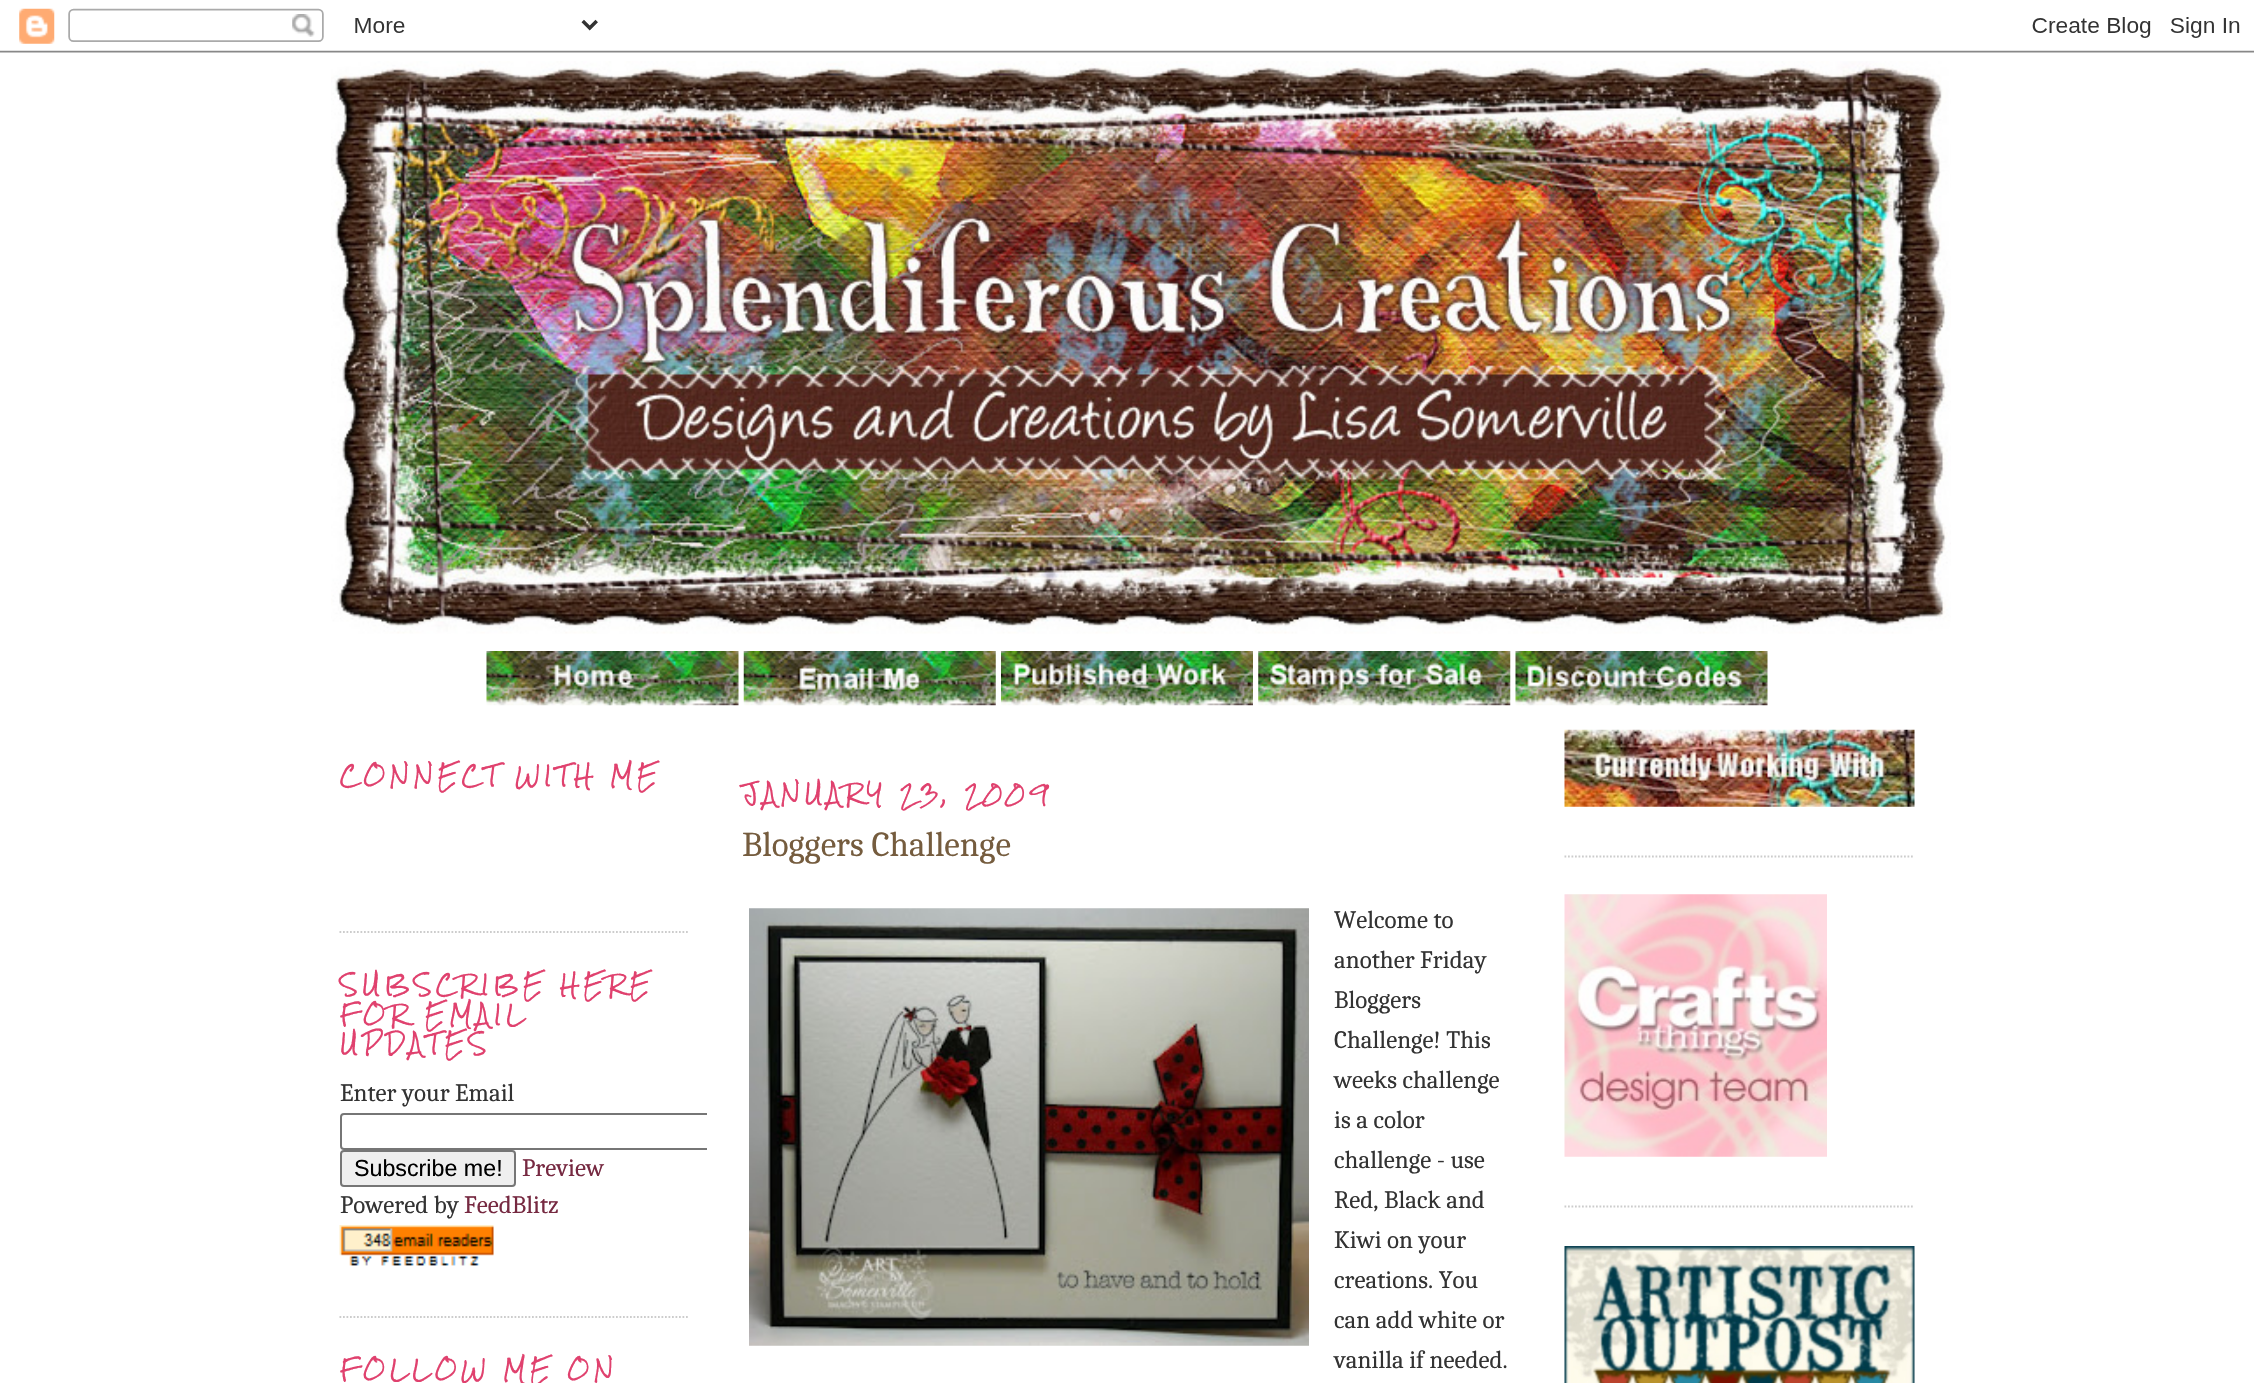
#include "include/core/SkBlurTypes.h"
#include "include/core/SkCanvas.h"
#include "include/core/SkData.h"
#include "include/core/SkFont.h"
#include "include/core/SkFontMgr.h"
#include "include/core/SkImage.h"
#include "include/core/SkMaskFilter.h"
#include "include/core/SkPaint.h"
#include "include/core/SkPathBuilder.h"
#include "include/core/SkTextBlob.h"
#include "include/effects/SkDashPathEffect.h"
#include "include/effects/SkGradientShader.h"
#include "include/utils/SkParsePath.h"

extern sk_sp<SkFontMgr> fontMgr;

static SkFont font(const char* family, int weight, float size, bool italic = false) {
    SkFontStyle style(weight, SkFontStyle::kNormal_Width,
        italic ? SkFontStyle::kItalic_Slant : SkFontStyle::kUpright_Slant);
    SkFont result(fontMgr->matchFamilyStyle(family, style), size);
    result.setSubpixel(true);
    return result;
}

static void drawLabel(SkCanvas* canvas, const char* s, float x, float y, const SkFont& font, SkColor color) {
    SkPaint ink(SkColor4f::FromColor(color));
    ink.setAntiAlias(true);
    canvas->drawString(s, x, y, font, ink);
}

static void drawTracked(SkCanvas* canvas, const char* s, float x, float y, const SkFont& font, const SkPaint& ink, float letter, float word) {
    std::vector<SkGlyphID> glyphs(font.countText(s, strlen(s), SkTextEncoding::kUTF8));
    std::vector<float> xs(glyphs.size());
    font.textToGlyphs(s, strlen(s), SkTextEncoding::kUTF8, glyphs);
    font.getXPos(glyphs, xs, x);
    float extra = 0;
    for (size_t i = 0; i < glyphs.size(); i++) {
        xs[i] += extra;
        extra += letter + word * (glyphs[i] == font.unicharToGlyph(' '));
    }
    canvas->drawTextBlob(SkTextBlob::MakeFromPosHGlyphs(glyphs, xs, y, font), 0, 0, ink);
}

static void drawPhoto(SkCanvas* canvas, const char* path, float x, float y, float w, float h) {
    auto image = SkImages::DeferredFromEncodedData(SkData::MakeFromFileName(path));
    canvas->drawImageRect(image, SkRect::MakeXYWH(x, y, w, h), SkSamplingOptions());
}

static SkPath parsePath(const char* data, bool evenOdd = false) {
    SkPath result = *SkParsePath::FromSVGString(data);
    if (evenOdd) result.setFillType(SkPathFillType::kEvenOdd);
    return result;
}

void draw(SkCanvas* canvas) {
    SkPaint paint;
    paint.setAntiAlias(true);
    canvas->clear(0xFFFFFFFF);
    drawPhoto(canvas, "assets/img1.png", 0, 8, 2254, 45);
    drawPhoto(canvas, "assets/img2.png", 331, 61, 1620, 573);
    drawPhoto(canvas, "assets/img3.png", 486, 651, 253, 55);
    drawPhoto(canvas, "assets/img4.png", 743, 651, 253, 55);
    drawPhoto(canvas, "assets/img5.png", 1001, 651, 252, 55);
    drawPhoto(canvas, "assets/img6.png", 1258, 651, 253, 55);
    drawPhoto(canvas, "assets/img7.png", 1515, 651, 253, 55);
    paint.setStroke(true);
    paint.setStrokeWidth(1.8f);
    paint.setColor(0xFFCCCCCC);
    paint.setPathEffect(SkDashPathEffect::Make({{1.75f, 1.75f}}, 0));
    canvas->drawPath(parsePath("M339.5 932H689.5"), paint);
    paint.setPathEffect(nullptr);
    SkFont font1 = font("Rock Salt", 400, 21);
    paint.setStroke(false);
    paint.setColor(0xFFE0416E);
    drawTracked(canvas, "CONNECT WITH ME", 340, 784, font1, paint, 4.25f, 0);
    paint.setStroke(true);
    paint.setColor(0xFFCCCCCC);
    paint.setPathEffect(SkDashPathEffect::Make({{1.75f, 1.75f}}, 0));
    canvas->drawPath(parsePath("M339.5 1317H689.5"), paint);
    paint.setPathEffect(nullptr);
    paint.setStroke(false);
    paint.setColor(0xFFE0416E);
    drawTracked(canvas, "SUBSCRIBE HERE", 340, 993, font1, paint, 4.25f, 0);
    drawTracked(canvas, "FOR EMAIL", 340, 1023, font1, paint, 4.25f, 0);
    drawTracked(canvas, "UPDATES", 340, 1052, font1, paint, 4.25f, 0);
    SkFont font2 = font("Caladea", 400, 25);
    drawLabel(canvas, "Enter your Email", 340, 1101, font2, 0xFF333333);
    canvas->save();
    canvas->clipRect(SkRect::MakeXYWH(322, 712, 385, 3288));
    paint.setStroke(true);
    paint.setStrokeWidth(2);
    paint.setColor(0xFF767676);
    canvas->drawRoundRect(SkRect::MakeXYWH(341, 1114, 391, 35), 3, 3, paint);
    canvas->restore();
    paint.setStroke(false);
    paint.setColor(0xFFEFEFEF);
    canvas->drawRoundRect(SkRect::MakeXYWH(341, 1151, 174, 35), 3, 3, paint);
    paint.setStroke(true);
    paint.setColor(0xFF767676);
    canvas->drawRoundRect(SkRect::MakeXYWH(341, 1151, 174, 35), 3, 3, paint);
    SkFont font3 = font("Liberation Sans", 400, 23.25f);
    drawLabel(canvas, "Subscribe me!", 354, 1176, font3, 0xFF000000);
    drawLabel(canvas, "Preview", 522, 1176, font2, 0xFF762941);
    drawLabel(canvas, "Powered by", 340, 1213, font2, 0xFF333333);
    drawLabel(canvas, "FeedBlitz", 464, 1213, font2, 0xFF762941);
    drawPhoto(canvas, "assets/img8.png", 339, 1225, 155, 41);
    paint.setStroke(false);
    paint.setColor(0xFFE0416E);
    drawTracked(canvas, "FOLLOW ME ON", 340, 1378, font1, paint, 4.25f, 0);
    drawTracked(canvas, "JANUARY 23, 2009", 742, 802, font1, paint, 4.25f, 0);
    SkFont font4 = font("Caladea", 400, 35);
    drawLabel(canvas, "Bloggers Challenge", 742, 856, font4, 0xFF755C3E);
    drawPhoto(canvas, "assets/img9.png", 749, 908, 560, 438);
    drawLabel(canvas, "Welcome to", 1334, 928, font2, 0xFF333333);
    drawLabel(canvas, "another Friday", 1334, 968, font2, 0xFF333333);
    drawLabel(canvas, "Bloggers", 1334, 1008, font2, 0xFF333333);
    drawLabel(canvas, "Challenge! This", 1334, 1048, font2, 0xFF333333);
    drawLabel(canvas, "weeks challenge", 1334, 1088, font2, 0xFF333333);
    drawLabel(canvas, "is a color", 1334, 1128, font2, 0xFF333333);
    drawLabel(canvas, "challenge - use", 1334, 1168, font2, 0xFF333333);
    drawLabel(canvas, "Red, Black and", 1334, 1208, font2, 0xFF333333);
    drawLabel(canvas, "Kiwi on your", 1334, 1248, font2, 0xFF333333);
    drawLabel(canvas, "creations. You", 1334, 1288, font2, 0xFF333333);
    drawLabel(canvas, "can add white or", 1334, 1328, font2, 0xFF333333);
    drawLabel(canvas, "vanilla if needed.", 1334, 1368, font2, 0xFF333333);
    paint.setStroke(true);
    paint.setStrokeWidth(1.8f);
    paint.setColor(0xFFCCCCCC);
    paint.setPathEffect(SkDashPathEffect::Make({{1.75f, 1.75f}}, 0));
    canvas->drawPath(parsePath("M1564.5 856.5H1914.5"), paint);
    paint.setPathEffect(nullptr);
    drawPhoto(canvas, "assets/img10.png", 1564, 729, 351, 78);
    paint.setPathEffect(SkDashPathEffect::Make({{1.75f, 1.75f}}, 0));
    canvas->drawPath(parsePath("M1564.5 1206.5H1914.5"), paint);
    paint.setPathEffect(nullptr);
    drawPhoto(canvas, "assets/img11.png", 1564, 894, 263, 263);
    drawPhoto(canvas, "assets/img12.png", 1564, 1246, 351, 137);
}
